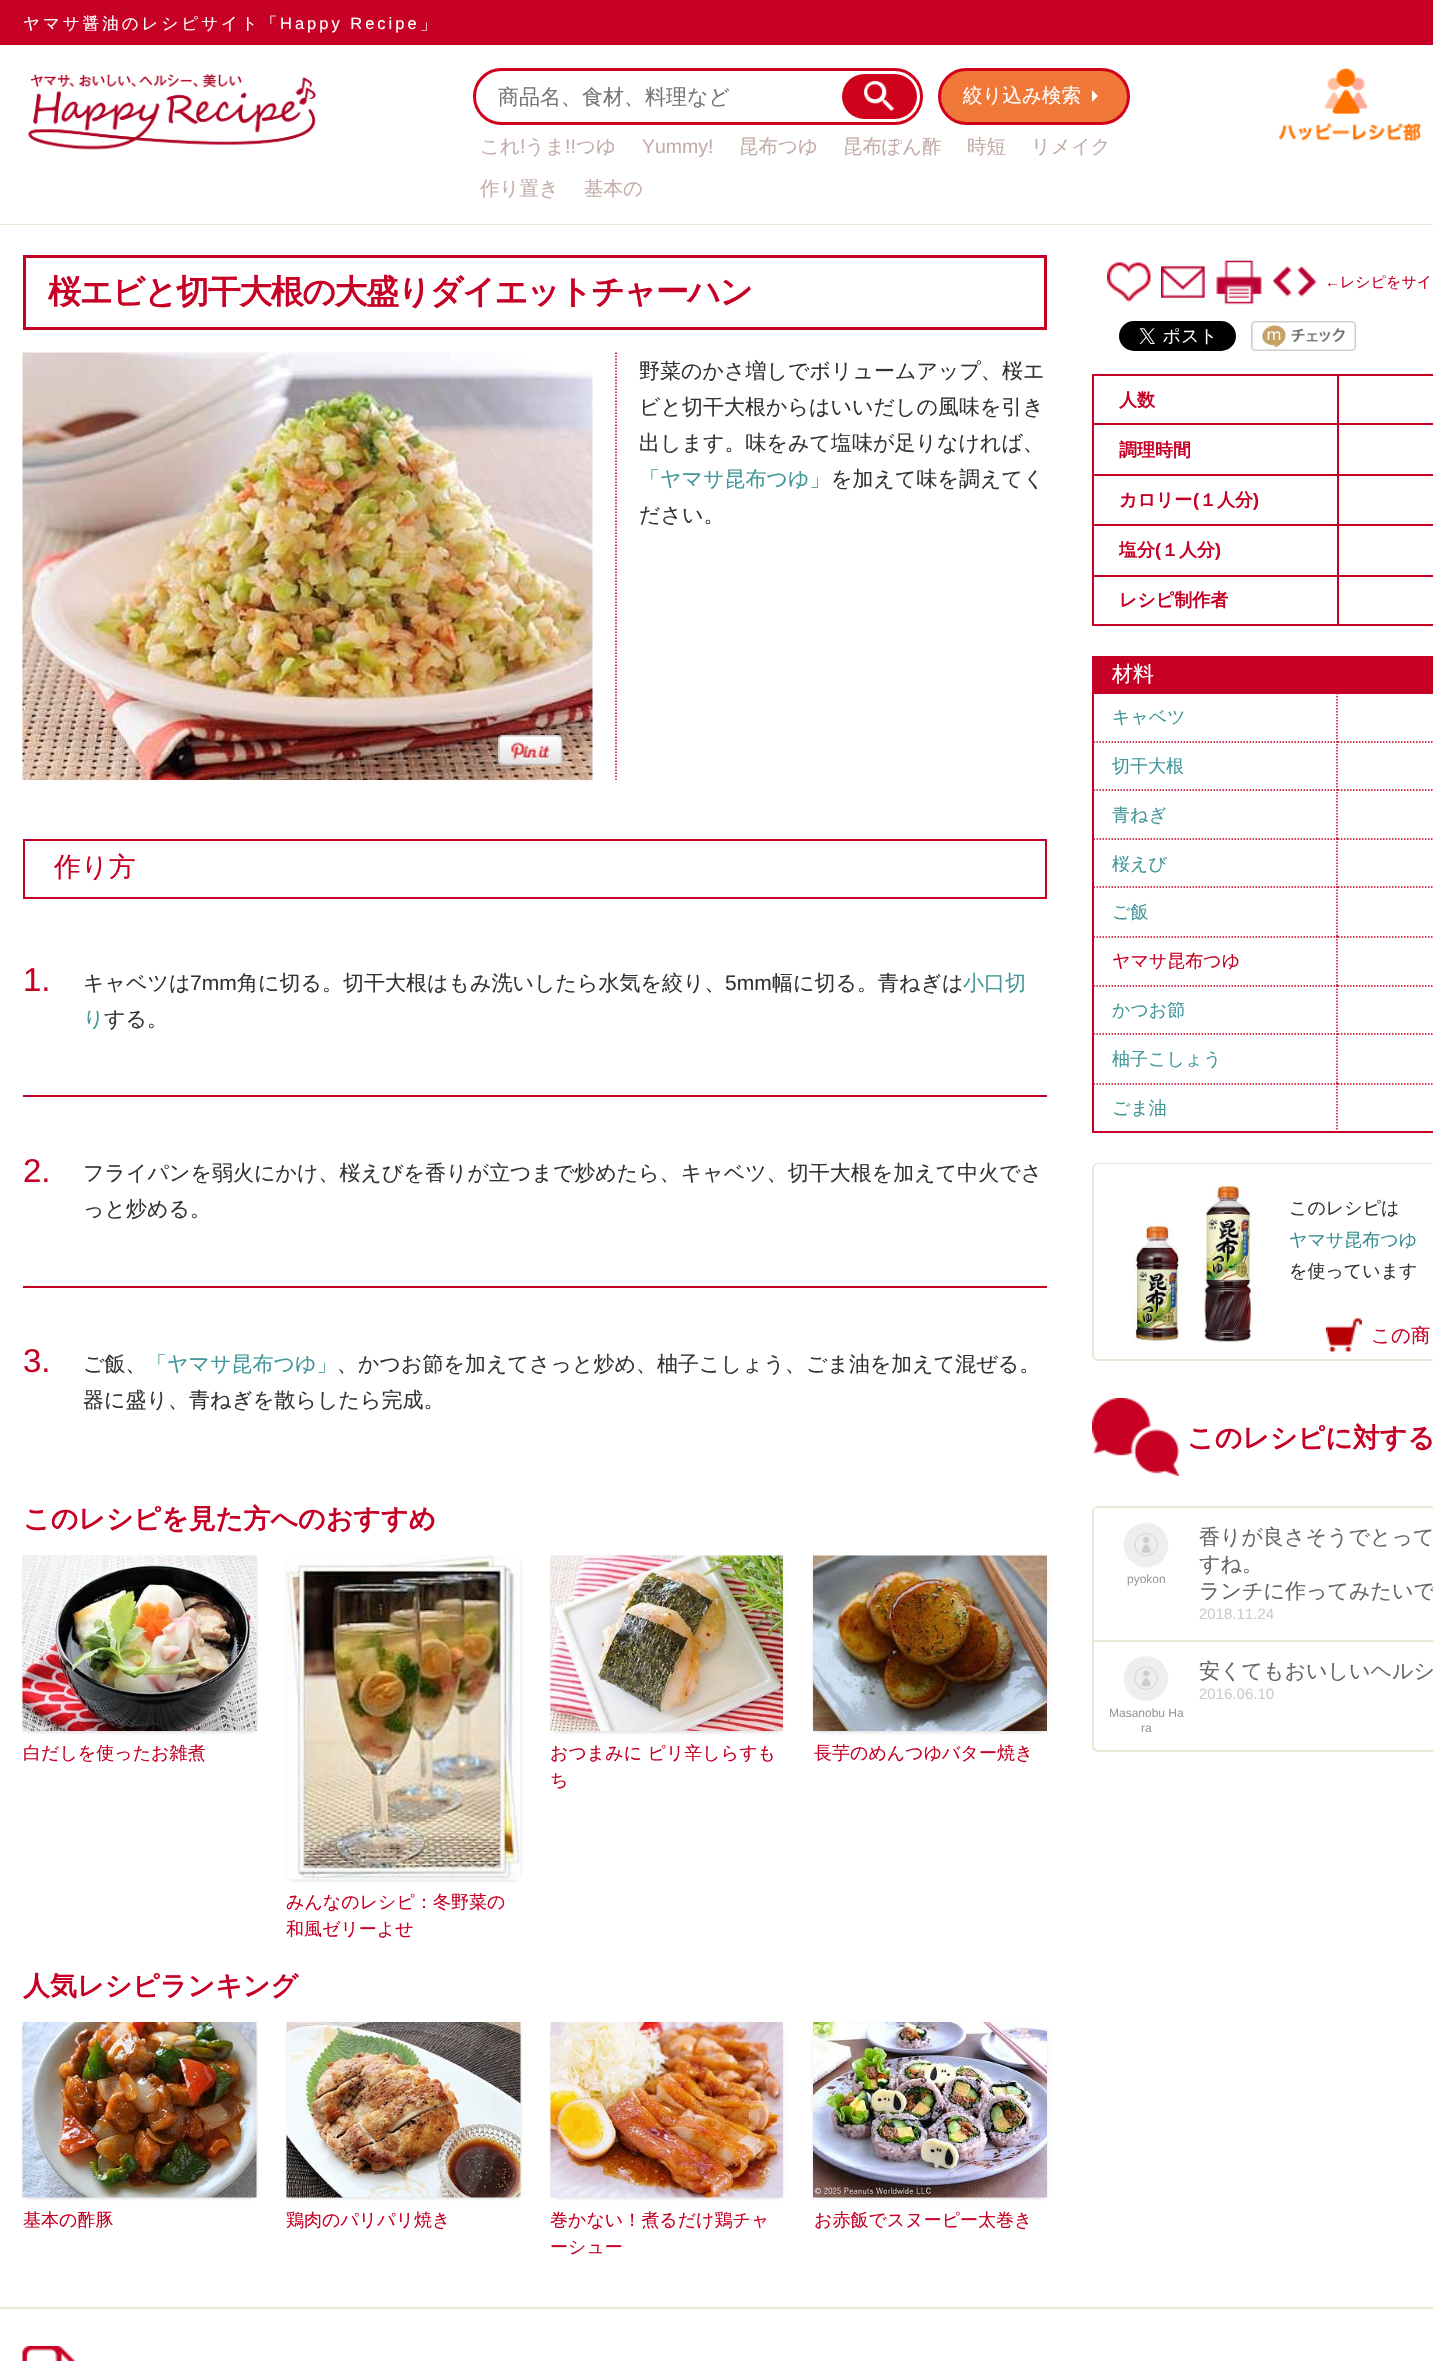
#include "include/core/SkBlurTypes.h"
#include "include/core/SkCanvas.h"
#include "include/core/SkData.h"
#include "include/core/SkFont.h"
#include "include/core/SkFontMgr.h"
#include "include/core/SkImage.h"
#include "include/core/SkMaskFilter.h"
#include "include/core/SkPaint.h"
#include "include/core/SkPathBuilder.h"
#include "include/core/SkTextBlob.h"
#include "include/effects/SkDashPathEffect.h"
#include "include/effects/SkGradientShader.h"
#include "include/utils/SkParsePath.h"

extern sk_sp<SkFontMgr> fontMgr;

static SkFont font(const char* family, int weight, float size, bool italic = false) {
    SkFontStyle style(weight, SkFontStyle::kNormal_Width,
        italic ? SkFontStyle::kItalic_Slant : SkFontStyle::kUpright_Slant);
    SkFont result(fontMgr->matchFamilyStyle(family, style), size);
    result.setSubpixel(true);
    return result;
}

static void drawLabel(SkCanvas* canvas, const char* s, float x, float y, const SkFont& font, SkColor color) {
    SkPaint ink(SkColor4f::FromColor(color));
    ink.setAntiAlias(true);
    canvas->drawString(s, x, y, font, ink);
}

static void drawTracked(SkCanvas* canvas, const char* s, float x, float y, const SkFont& font, const SkPaint& ink, float letter, float word) {
    std::vector<SkGlyphID> glyphs(font.countText(s, strlen(s), SkTextEncoding::kUTF8));
    std::vector<float> xs(glyphs.size());
    font.textToGlyphs(s, strlen(s), SkTextEncoding::kUTF8, glyphs);
    font.getXPos(glyphs, xs, x);
    float extra = 0;
    for (size_t i = 0; i < glyphs.size(); i++) {
        xs[i] += extra;
        extra += letter + word * (glyphs[i] == font.unicharToGlyph(' '));
    }
    canvas->drawTextBlob(SkTextBlob::MakeFromPosHGlyphs(glyphs, xs, y, font), 0, 0, ink);
}

static void fillRect(SkCanvas* canvas, float x, float y, float w, float h, SkColor color) {
    SkPaint ink(SkColor4f::FromColor(color));
    ink.setAntiAlias(true);
    canvas->drawRect(SkRect::MakeXYWH(x, y, w, h), ink);
}

static void fillRRect(SkCanvas* canvas, float x, float y, float w, float h, float radius, SkColor color) {
    SkPaint ink(SkColor4f::FromColor(color));
    ink.setAntiAlias(true);
    canvas->drawRoundRect(SkRect::MakeXYWH(x, y, w, h), radius, radius, ink);
}

static void drawPhoto(SkCanvas* canvas, const char* path, float x, float y, float w, float h) {
    auto image = SkImages::DeferredFromEncodedData(SkData::MakeFromFileName(path));
    canvas->drawImageRect(image, SkRect::MakeXYWH(x, y, w, h), SkSamplingOptions());
}

static SkPath parsePath(const char* data, bool evenOdd = false) {
    SkPath result = *SkParsePath::FromSVGString(data);
    if (evenOdd) result.setFillType(SkPathFillType::kEvenOdd);
    return result;
}

void draw(SkCanvas* canvas) {
    SkPaint paint;
    paint.setAntiAlias(true);
    canvas->clear(0xFFFFFFFF);
    fillRect(canvas, 0, 0, 1433, 45, 0xFFC70025);
    SkFont font1 = font("WenQuanYi Zen Hei", 500, 16.5f);
    paint.setColor(0xFFFFFFFF);
    drawTracked(canvas, "ヤマサ醤油のレシピサイト「", 23, 29, font1, paint, 3, 0);
    SkFont font2 = font("Liberation Sans", 400, 16.5f);
    drawTracked(canvas, "Happy Recipe", 280, 29, font2, paint, 3, 0);
    drawTracked(canvas, "」", 420, 29, font1, paint, 3, 0);
    fillRect(canvas, 0, 224, 1433, 1, 0xFFE8E8D6);
    drawPhoto(canvas, "assets/img1.png", 28, 74, 288, 76);
    paint.setStroke(true);
    paint.setStrokeWidth(3);
    paint.setColor(0xFFD0021B);
    canvas->drawRoundRect(SkRect::MakeXYWH(474.5f, 69.5f, 447, 54), 27, 27, paint);
    SkFont font3 = font("WenQuanYi Zen Hei", 500, 21);
    drawLabel(canvas, "商品名、食材、料理など", 498, 104, font3, 0xFF757575);
    fillRRect(canvas, 842, 74, 75, 45, 22.5f, 0xFFD0021B);
    drawPhoto(canvas, "assets/img2.png", 864, 81, 30, 30);
    paint.setStroke(false);
    paint.setColor(0xFFF07939);
    canvas->drawRoundRect(SkRect::MakeXYWH(939.5f, 69.5f, 189, 54), 27, 27, paint);
    paint.setStroke(true);
    paint.setColor(0xFFD0021B);
    canvas->drawRoundRect(SkRect::MakeXYWH(939.5f, 69.5f, 189, 54), 27, 27, paint);
    SkFont font4 = font("WenQuanYi Zen Hei", 500, 19.5f);
    drawLabel(canvas, "絞り込み検索", 963, 102, font4, 0xFFFFFFFF);
    paint.setStroke(false);
    paint.setColor(0xFFFFFFFF);
    canvas->drawPath(parsePath("M1092 102V90L1098 96Z"), paint);
    drawLabel(canvas, "これ", 480, 153, font4, 0xFFC4ADA9);
    SkFont font5 = font("Liberation Sans", 400, 19.5f);
    drawLabel(canvas, "!", 520, 153, font5, 0xFFC4ADA9);
    drawLabel(canvas, "うま", 525, 153, font4, 0xFFC4ADA9);
    drawLabel(canvas, "!!", 565, 153, font5, 0xFFC4ADA9);
    drawLabel(canvas, "つゆ", 576, 153, font4, 0xFFC4ADA9);
    drawLabel(canvas, "Yummy!", 642, 153, font5, 0xFFC4ADA9);
    drawLabel(canvas, "昆布つゆ", 739, 153, font4, 0xFFC4ADA9);
    drawLabel(canvas, "昆布ぽん酢", 843, 153, font4, 0xFFC4ADA9);
    drawLabel(canvas, "時短", 967, 153, font4, 0xFFC4ADA9);
    drawLabel(canvas, "リメイク", 1031, 153, font4, 0xFFC4ADA9);
    drawLabel(canvas, "作り置き", 480, 195, font4, 0xFFC4ADA9);
    drawLabel(canvas, "基本の", 584, 195, font4, 0xFFC4ADA9);
    drawPhoto(canvas, "assets/img3.png", 1278, 68, 143, 73);
    paint.setStroke(true);
    paint.setColor(0xFFC70025);
    canvas->drawRect(SkRect::MakeXYWH(24.5f, 256.5f, 1021, 72), paint);
    SkFont font6 = font("WenQuanYi Zen Hei", 700, 33);
    paint.setStroke(false);
    drawTracked(canvas, "桜エビと切干大根の大盛りダイエットチャーハン", 48, 303, font6, paint, -1.5f, 0);
    paint.setStroke(true);
    paint.setStrokeWidth(1.5f);
    paint.setPathEffect(SkDashPathEffect::Make({{1.5f, 1.5f}}, 0));
    canvas->drawPath(parsePath("M616 352.5V780"), paint);
    paint.setPathEffect(nullptr);
    drawPhoto(canvas, "assets/img4.png", 22, 352, 571, 428);
    drawPhoto(canvas, "assets/img5.png", 498, 735, 65, 31);
    drawLabel(canvas, "野菜のかさ増しでボリュームアップ、桜エ", 639, 378, font3, 0xFF333333);
    drawLabel(canvas, "ビと切干大根からはいいだしの風味を引き", 639, 414, font3, 0xFF333333);
    drawLabel(canvas, "出します。味をみて塩味が足りなければ、", 639, 450, font3, 0xFF333333);
    drawLabel(canvas, "「ヤマサ昆布つゆ」", 639, 486, font3, 0xFF439799);
    drawLabel(canvas, "を加えて味を調えてく", 831, 486, font3, 0xFF333333);
    drawLabel(canvas, "ださい。", 639, 522, font3, 0xFF333333);
    paint.setStrokeWidth(2);
    canvas->drawRect(SkRect::MakeXYWH(24, 840, 1022, 58), paint);
    SkFont font7 = font("WenQuanYi Zen Hei", 500, 27);
    drawLabel(canvas, "作り方", 54, 876, font7, 0xFFC70025);
    SkFont font8 = font("Liberation Sans", 400, 33);
    drawLabel(canvas, "1.", 23, 991, font8, 0xFFC70025);
    drawLabel(canvas, "キャベツは", 83, 990, font3, 0xFF333333);
    SkFont font9 = font("Liberation Sans", 400, 21);
    drawLabel(canvas, "7mm", 190, 990, font9, 0xFF333333);
    drawLabel(canvas, "角に切る。切干大根はもみ洗いしたら水気を絞り、", 237, 990, font3, 0xFF333333);
    drawLabel(canvas, "5mm", 725, 990, font9, 0xFF333333);
    drawLabel(canvas, "幅に切る。青ねぎは", 772, 990, font3, 0xFF333333);
    drawLabel(canvas, "小口切", 963, 990, font3, 0xFF439799);
    drawLabel(canvas, "り", 83, 1026, font3, 0xFF439799);
    drawLabel(canvas, "する。", 104, 1026, font3, 0xFF333333);
    fillRect(canvas, 23, 1095, 1024, 2, 0xFFC70025);
    drawLabel(canvas, "2.", 23, 1182, font8, 0xFFC70025);
    drawLabel(canvas, "フライパンを弱火にかけ、桜えびを香りが立つまで炒めたら、キャベツ、切干大根を加えて中火でさ", 83, 1180, font3, 0xFF333333);
    drawLabel(canvas, "っと炒める。", 83, 1216, font3, 0xFF333333);
    fillRect(canvas, 23, 1286, 1024, 2, 0xFFC70025);
    drawLabel(canvas, "3.", 23, 1372, font8, 0xFFC70025);
    drawLabel(canvas, "ご飯、", 83, 1371, font3, 0xFF333333);
    drawLabel(canvas, "「ヤマサ昆布つゆ」", 146, 1371, font3, 0xFF439799);
    drawLabel(canvas, "、かつお節を加えてさっと炒め、柚子こしょう、ごま油を加えて混ぜる。", 337, 1371, font3, 0xFF333333);
    drawLabel(canvas, "器に盛り、青ねぎを散らしたら完成。", 83, 1407, font3, 0xFF333333);
    SkFont font10 = font("WenQuanYi Zen Hei", 700, 27);
    drawLabel(canvas, "このレシピを見た方へのおすすめ", 23, 1528, font10, 0xFFC70025);
    paint.setStroke(false);
    paint.setColor(0x1A000000);
    paint.setMaskFilter(SkMaskFilter::MakeBlur(kNormal_SkBlurStyle, 1.5f));
    canvas->drawRoundRect(SkRect::MakeXYWH(23, 1557, 234, 176), 8, 8, paint);
    paint.setMaskFilter(nullptr);
    drawPhoto(canvas, "assets/img6.png", 22, 1555, 235, 176);
    SkFont font11 = font("WenQuanYi Zen Hei", 500, 18);
    drawLabel(canvas, "白だしを使ったお雑煮", 23, 1759, font11, 0xFFC70025);
    paint.setMaskFilter(SkMaskFilter::MakeBlur(kNormal_SkBlurStyle, 1.5f));
    canvas->drawRoundRect(SkRect::MakeXYWH(551, 1557, 232, 176), 8, 8, paint);
    paint.setMaskFilter(nullptr);
    drawPhoto(canvas, "assets/img7.png", 550, 1555, 233, 176);
    drawLabel(canvas, "おつまみに ピリ辛しらすも", 550, 1759, font11, 0xFFC70025);
    drawLabel(canvas, "ち", 550, 1786, font11, 0xFFC70025);
    paint.setMaskFilter(SkMaskFilter::MakeBlur(kNormal_SkBlurStyle, 1.5f));
    canvas->drawRoundRect(SkRect::MakeXYWH(813, 1557, 234, 176), 8, 8, paint);
    paint.setMaskFilter(nullptr);
    drawPhoto(canvas, "assets/img8.png", 813, 1555, 234, 176);
    drawLabel(canvas, "長芋のめんつゆバター焼き", 814, 1759, font11, 0xFFC70025);
    paint.setMaskFilter(SkMaskFilter::MakeBlur(kNormal_SkBlurStyle, 1.5f));
    canvas->drawRoundRect(SkRect::MakeXYWH(287, 1557, 234, 324), 8, 8, paint);
    paint.setMaskFilter(nullptr);
    drawPhoto(canvas, "assets/img9.png", 286, 1555, 235, 325);
    drawLabel(canvas, "みんなのレシピ：冬野菜の", 286, 1908, font11, 0xFFC70025);
    drawLabel(canvas, "和風ゼリーよせ", 286, 1935, font11, 0xFFC70025);
    drawLabel(canvas, "人気レシピランキング", 23, 1995, font10, 0xFFC70025);
    paint.setMaskFilter(SkMaskFilter::MakeBlur(kNormal_SkBlurStyle, 1.5f));
    canvas->drawRoundRect(SkRect::MakeXYWH(23, 2024, 234, 175), 8, 8, paint);
    paint.setMaskFilter(nullptr);
    drawPhoto(canvas, "assets/img10.png", 22, 2022, 235, 176);
    drawLabel(canvas, "基本の酢豚", 23, 2226, font11, 0xFFC70025);
    paint.setMaskFilter(SkMaskFilter::MakeBlur(kNormal_SkBlurStyle, 1.5f));
    canvas->drawRoundRect(SkRect::MakeXYWH(287, 2024, 234, 175), 8, 8, paint);
    paint.setMaskFilter(nullptr);
    drawPhoto(canvas, "assets/img11.png", 286, 2022, 235, 176);
    drawLabel(canvas, "鶏肉のパリパリ焼き", 286, 2226, font11, 0xFFC70025);
    paint.setMaskFilter(SkMaskFilter::MakeBlur(kNormal_SkBlurStyle, 1.5f));
    canvas->drawRoundRect(SkRect::MakeXYWH(551, 2024, 232, 175), 8, 8, paint);
    paint.setMaskFilter(nullptr);
    drawPhoto(canvas, "assets/img12.png", 550, 2022, 233, 176);
    drawLabel(canvas, "巻かない！煮るだけ鶏チャ", 550, 2226, font11, 0xFFC70025);
    drawLabel(canvas, "ーシュー", 550, 2253, font11, 0xFFC70025);
    paint.setMaskFilter(SkMaskFilter::MakeBlur(kNormal_SkBlurStyle, 1.5f));
    canvas->drawRoundRect(SkRect::MakeXYWH(813, 2024, 234, 175), 8, 8, paint);
    paint.setMaskFilter(nullptr);
    drawPhoto(canvas, "assets/img13.png", 813, 2022, 234, 176);
    drawLabel(canvas, "お赤飯でスヌーピー太巻き", 814, 2226, font11, 0xFFC70025);
    drawPhoto(canvas, "assets/img14.png", 1107, 262, 44, 40);
    drawPhoto(canvas, "assets/img15.png", 1161, 266, 44, 32);
    drawPhoto(canvas, "assets/img16.png", 1216, 259, 46, 46);
    drawPhoto(canvas, "assets/img17.png", 1272, 266, 45, 31);
    SkFont font12 = font("Liberation Sans", 400, 15);
    drawLabel(canvas, "←", 1325, 287, font12, 0xFFC70025);
    SkFont font13 = font("WenQuanYi Zen Hei", 500, 15);
    drawLabel(canvas, "レシピをサイ", 1340, 287, font13, 0xFFC70025);
    drawPhoto(canvas, "assets/img18.png", 1119, 321, 117, 30);
    drawPhoto(canvas, "assets/img19.png", 1251, 321, 105, 30);
    fillRect(canvas, 1092, 374, 341, 2, 0xFFC70025);
    fillRect(canvas, 1092, 624, 341, 2, 0xFFC70025);
    fillRect(canvas, 1092, 374, 2, 252, 0xFFC70025);
    fillRect(canvas, 1092, 423, 341, 2, 0xFFC70025);
    SkFont font14 = font("WenQuanYi Zen Hei", 700, 18);
    drawLabel(canvas, "人数", 1119, 406, font14, 0xFFC70025);
    fillRect(canvas, 1092, 474, 341, 2, 0xFFC70025);
    drawLabel(canvas, "調理時間", 1119, 456, font14, 0xFFC70025);
    fillRect(canvas, 1092, 524, 341, 2, 0xFFC70025);
    drawLabel(canvas, "カロリー", 1119, 506, font14, 0xFFC70025);
    SkFont font15 = font("Liberation Sans", 700, 18);
    drawLabel(canvas, "(", 1193, 506, font15, 0xFFC70025);
    drawLabel(canvas, "１人分", 1199, 506, font14, 0xFFC70025);
    drawLabel(canvas, ")", 1253, 506, font15, 0xFFC70025);
    fillRect(canvas, 1092, 575, 341, 2, 0xFFC70025);
    drawLabel(canvas, "塩分", 1119, 556, font14, 0xFFC70025);
    drawLabel(canvas, "(", 1155, 556, font15, 0xFFC70025);
    drawLabel(canvas, "１人分", 1161, 556, font14, 0xFFC70025);
    drawLabel(canvas, ")", 1215, 556, font15, 0xFFC70025);
    fillRect(canvas, 1337, 374, 2, 252, 0xFFC70025);
    drawLabel(canvas, "レシピ制作者", 1119, 606, font14, 0xFFC70025);
    fillRect(canvas, 1092, 656, 341, 36, 0xFFC70025);
    drawLabel(canvas, "材料", 1112, 681, font3, 0xFFFFFFFF);
    paint.setStroke(true);
    paint.setColor(0xFFC70025);
    canvas->drawRect(SkRect::MakeXYWH(1093, 693, 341, 439), paint);
    paint.setStrokeWidth(1.5f);
    paint.setPathEffect(SkDashPathEffect::Make({{1.5f, 1.5f}}, 0));
    canvas->drawPath(parsePath("M1337 693V741"), paint);
    paint.setPathEffect(nullptr);
    drawLabel(canvas, "キャベツ", 1112, 723, font11, 0xFF439799);
    paint.setPathEffect(SkDashPathEffect::Make({{1.5f, 1.5f}}, 0));
    canvas->drawPath(parsePath("M1338 742H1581"), paint);
    paint.setPathEffect(nullptr);
    paint.setPathEffect(SkDashPathEffect::Make({{1.5f, 1.5f}}, 0));
    canvas->drawPath(parsePath("M1093.5 742H1338"), paint);
    paint.setPathEffect(nullptr);
    paint.setPathEffect(SkDashPathEffect::Make({{1.5f, 1.5f}}, 0));
    canvas->drawPath(parsePath("M1337 741V789"), paint);
    paint.setPathEffect(nullptr);
    drawLabel(canvas, "切干大根", 1112, 772, font11, 0xFF439799);
    paint.setPathEffect(SkDashPathEffect::Make({{1.5f, 1.5f}}, 0));
    canvas->drawPath(parsePath("M1338 790H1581"), paint);
    paint.setPathEffect(nullptr);
    paint.setPathEffect(SkDashPathEffect::Make({{1.5f, 1.5f}}, 0));
    canvas->drawPath(parsePath("M1093.5 790H1338"), paint);
    paint.setPathEffect(nullptr);
    paint.setPathEffect(SkDashPathEffect::Make({{1.5f, 1.5f}}, 0));
    canvas->drawPath(parsePath("M1337 789V838.5"), paint);
    paint.setPathEffect(nullptr);
    drawLabel(canvas, "青ねぎ", 1112, 821, font11, 0xFF439799);
    paint.setPathEffect(SkDashPathEffect::Make({{1.5f, 1.5f}}, 0));
    canvas->drawPath(parsePath("M1338 839H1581"), paint);
    paint.setPathEffect(nullptr);
    paint.setPathEffect(SkDashPathEffect::Make({{1.5f, 1.5f}}, 0));
    canvas->drawPath(parsePath("M1093.5 839H1338"), paint);
    paint.setPathEffect(nullptr);
    paint.setPathEffect(SkDashPathEffect::Make({{1.5f, 1.5f}}, 0));
    canvas->drawPath(parsePath("M1337 838.5V886.5"), paint);
    paint.setPathEffect(nullptr);
    drawLabel(canvas, "桜えび", 1112, 870, font11, 0xFF439799);
    paint.setPathEffect(SkDashPathEffect::Make({{1.5f, 1.5f}}, 0));
    canvas->drawPath(parsePath("M1338 887H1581"), paint);
    paint.setPathEffect(nullptr);
    paint.setPathEffect(SkDashPathEffect::Make({{1.5f, 1.5f}}, 0));
    canvas->drawPath(parsePath("M1093.5 887H1338"), paint);
    paint.setPathEffect(nullptr);
    paint.setPathEffect(SkDashPathEffect::Make({{1.5f, 1.5f}}, 0));
    canvas->drawPath(parsePath("M1337 886.5V936"), paint);
    paint.setPathEffect(nullptr);
    drawLabel(canvas, "ご飯", 1112, 918, font11, 0xFF439799);
    paint.setPathEffect(SkDashPathEffect::Make({{1.5f, 1.5f}}, 0));
    canvas->drawPath(parsePath("M1338 937H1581"), paint);
    paint.setPathEffect(nullptr);
    paint.setPathEffect(SkDashPathEffect::Make({{1.5f, 1.5f}}, 0));
    canvas->drawPath(parsePath("M1093.5 937H1338"), paint);
    paint.setPathEffect(nullptr);
    paint.setPathEffect(SkDashPathEffect::Make({{1.5f, 1.5f}}, 0));
    canvas->drawPath(parsePath("M1337 936V985.5"), paint);
    paint.setPathEffect(nullptr);
    drawLabel(canvas, "ヤマサ昆布つゆ", 1112, 967, font11, 0xFFC70025);
    paint.setPathEffect(SkDashPathEffect::Make({{1.5f, 1.5f}}, 0));
    canvas->drawPath(parsePath("M1338 986H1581"), paint);
    paint.setPathEffect(nullptr);
    paint.setPathEffect(SkDashPathEffect::Make({{1.5f, 1.5f}}, 0));
    canvas->drawPath(parsePath("M1093.5 986H1338"), paint);
    paint.setPathEffect(nullptr);
    paint.setPathEffect(SkDashPathEffect::Make({{1.5f, 1.5f}}, 0));
    canvas->drawPath(parsePath("M1337 985.5V1033.5"), paint);
    paint.setPathEffect(nullptr);
    drawLabel(canvas, "かつお節", 1112, 1016, font11, 0xFF439799);
    paint.setPathEffect(SkDashPathEffect::Make({{1.5f, 1.5f}}, 0));
    canvas->drawPath(parsePath("M1338 1034H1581"), paint);
    paint.setPathEffect(nullptr);
    paint.setPathEffect(SkDashPathEffect::Make({{1.5f, 1.5f}}, 0));
    canvas->drawPath(parsePath("M1093.5 1034H1338"), paint);
    paint.setPathEffect(nullptr);
    paint.setPathEffect(SkDashPathEffect::Make({{1.5f, 1.5f}}, 0));
    canvas->drawPath(parsePath("M1337 1033.5V1083"), paint);
    paint.setPathEffect(nullptr);
    drawLabel(canvas, "柚子こしょう", 1112, 1065, font11, 0xFF439799);
    paint.setPathEffect(SkDashPathEffect::Make({{1.5f, 1.5f}}, 0));
    canvas->drawPath(parsePath("M1338 1084H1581"), paint);
    paint.setPathEffect(nullptr);
    paint.setPathEffect(SkDashPathEffect::Make({{1.5f, 1.5f}}, 0));
    canvas->drawPath(parsePath("M1093.5 1084H1338"), paint);
    paint.setPathEffect(nullptr);
    paint.setPathEffect(SkDashPathEffect::Make({{1.5f, 1.5f}}, 0));
    canvas->drawPath(parsePath("M1337 1083V1131"), paint);
    paint.setPathEffect(nullptr);
    drawLabel(canvas, "ごま油", 1112, 1114, font11, 0xFF439799);
    paint.setStrokeWidth(2);
    paint.setColor(0xFFE8E8D6);
    canvas->drawRoundRect(SkRect::MakeXYWH(1093, 1164, 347, 196), 5, 5, paint);
    fillRRect(canvas, 1094, 1164, 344, 195, 5, 0xFFFFFFFF);
    drawPhoto(canvas, "assets/img20.png", 1132, 1185, 123, 158);
    drawLabel(canvas, "このレシピは", 1289, 1214, font11, 0xFF333333);
    drawLabel(canvas, "ヤマサ昆布つゆ", 1289, 1246, font11, 0xFF398F92);
    drawLabel(canvas, "を使っています", 1289, 1277, font11, 0xFF333333);
    drawPhoto(canvas, "assets/img21.png", 1326, 1318, 36, 34);
    drawLabel(canvas, "この商", 1371, 1342, font4, 0xFFC70025);
    drawPhoto(canvas, "assets/img22.png", 1092, 1398, 87, 78);
    drawLabel(canvas, "このレシピに対する", 1187, 1447, font10, 0xFFC70025);
    paint.setStroke(false);
    canvas->drawPath(parsePath("M1098 1506H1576C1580 1506 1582 1509 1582 1512V1746C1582 1749 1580 1752 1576 1752H1098C1095 1752 1092 1749 1092 1746V1512C1092 1509 1095 1506 1098 1506ZM1098 1506H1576C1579 1506 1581 1509 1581 1512V1746C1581 1748 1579 1750 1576 1750H1098C1096 1750 1094 1748 1094 1746V1512C1094 1509 1096 1506 1098 1506Z", true), paint);
    canvas->drawPath(parsePath("M1098 1506C1097 1506 1095 1507 1095 1508H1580C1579 1507 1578 1506 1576 1506Z"), paint);
    drawPhoto(canvas, "assets/img23.png", 1123, 1522, 46, 46);
    SkFont font16 = font("Liberation Sans", 400, 12);
    drawLabel(canvas, "pyokon", 1127, 1583, font16, 0xFF999999);
    drawLabel(canvas, "香りが良さそうでとって", 1199, 1544, font3, 0xFF666666);
    drawLabel(canvas, "すね。", 1199, 1571, font3, 0xFF666666);
    drawLabel(canvas, "ランチに作ってみたいで", 1199, 1598, font3, 0xFF666666);
    drawLabel(canvas, "2018.11.24", 1199, 1619, font12, 0xFFCCCCCC);
    fillRect(canvas, 1094, 1640, 339, 2, 0xFFE8E8D6);
    drawLabel(canvas, "安くてもおいしいヘルシ", 1199, 1678, font3, 0xFF666666);
    drawLabel(canvas, "2016.06.10", 1199, 1699, font12, 0xFFCCCCCC);
    drawPhoto(canvas, "assets/img24.png", 1123, 1656, 46, 45);
    drawLabel(canvas, "Masanobu Ha", 1109, 1717, font16, 0xFF999999);
    drawLabel(canvas, "ra", 1141, 1732, font16, 0xFF999999);
    fillRect(canvas, 0, 2307, 1433, 2, 0xFFE8E8D6);
    drawPhoto(canvas, "assets/img25.png", 22, 2346, 54, 15);
}
